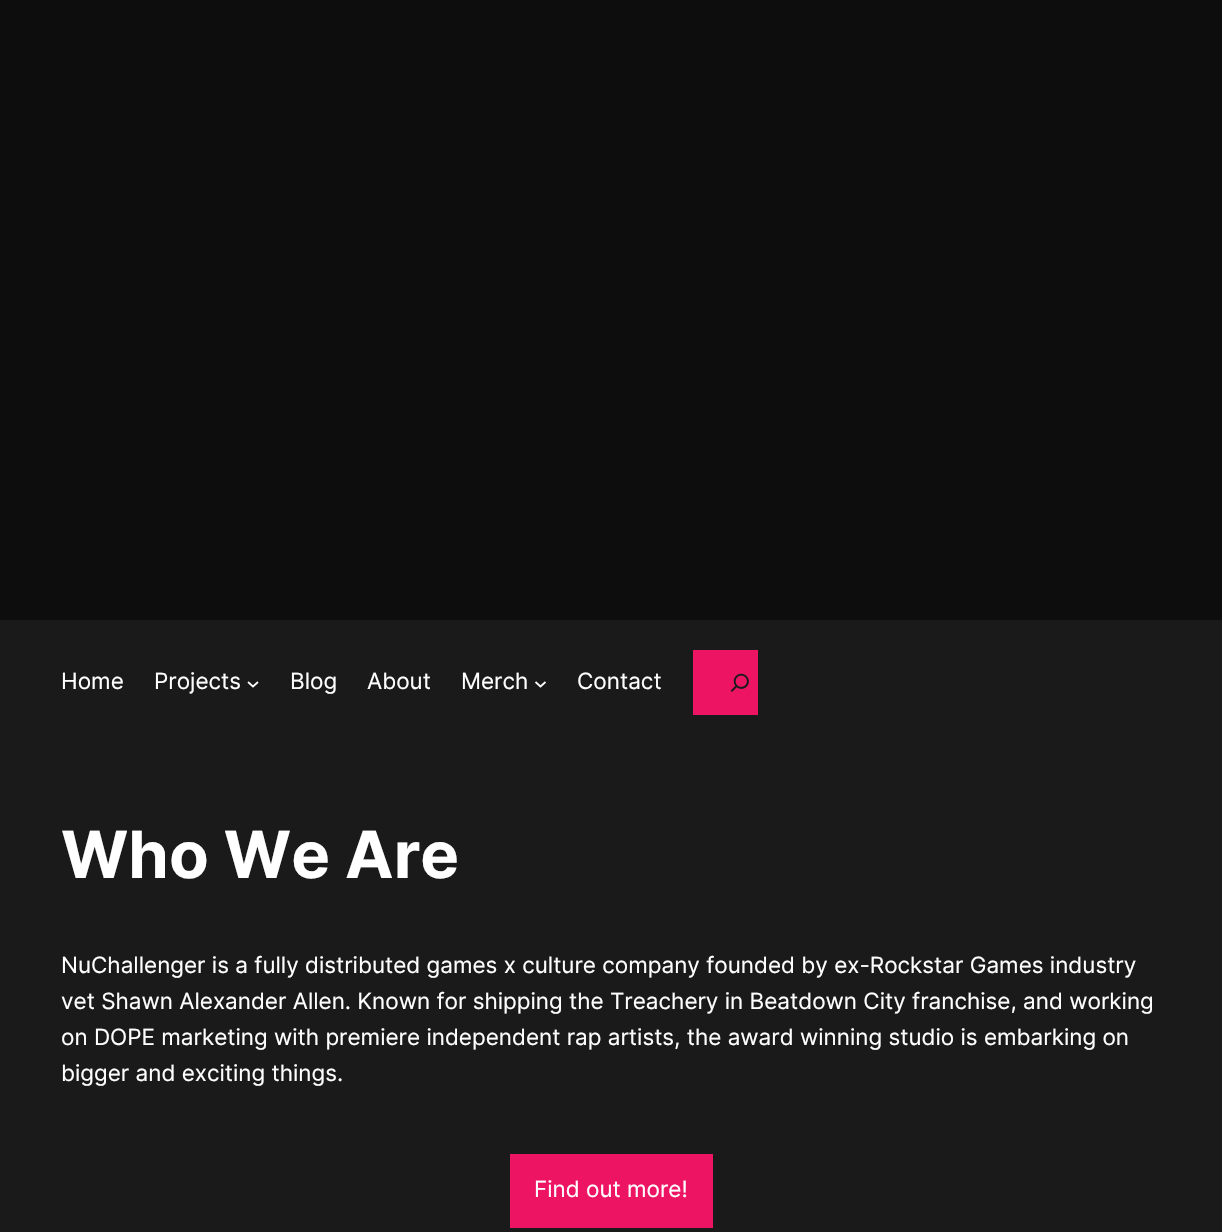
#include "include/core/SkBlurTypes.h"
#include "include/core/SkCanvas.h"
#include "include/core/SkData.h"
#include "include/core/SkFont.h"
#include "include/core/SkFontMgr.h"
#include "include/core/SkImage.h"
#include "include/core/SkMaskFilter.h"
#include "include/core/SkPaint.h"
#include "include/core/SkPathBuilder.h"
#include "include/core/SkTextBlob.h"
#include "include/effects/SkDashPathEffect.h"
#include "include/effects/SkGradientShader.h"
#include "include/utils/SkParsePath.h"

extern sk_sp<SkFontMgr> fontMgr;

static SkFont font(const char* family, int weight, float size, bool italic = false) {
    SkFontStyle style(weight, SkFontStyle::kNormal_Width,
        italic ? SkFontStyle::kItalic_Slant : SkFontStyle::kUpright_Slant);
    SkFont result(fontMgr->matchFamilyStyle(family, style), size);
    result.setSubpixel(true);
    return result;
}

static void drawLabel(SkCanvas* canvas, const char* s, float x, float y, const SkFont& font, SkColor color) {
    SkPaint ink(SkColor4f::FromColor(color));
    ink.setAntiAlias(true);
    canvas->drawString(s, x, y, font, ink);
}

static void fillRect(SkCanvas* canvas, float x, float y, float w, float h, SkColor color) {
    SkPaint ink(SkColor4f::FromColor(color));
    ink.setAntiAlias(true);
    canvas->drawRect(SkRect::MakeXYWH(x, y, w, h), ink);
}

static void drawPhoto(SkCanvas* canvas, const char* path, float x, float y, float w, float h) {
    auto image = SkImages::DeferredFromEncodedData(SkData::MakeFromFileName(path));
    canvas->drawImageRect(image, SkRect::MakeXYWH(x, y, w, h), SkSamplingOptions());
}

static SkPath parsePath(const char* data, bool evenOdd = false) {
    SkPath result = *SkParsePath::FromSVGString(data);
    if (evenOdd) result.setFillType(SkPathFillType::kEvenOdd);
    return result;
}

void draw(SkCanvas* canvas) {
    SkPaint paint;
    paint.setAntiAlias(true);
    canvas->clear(0xFF1A1A1A);
    fillRect(canvas, 0, 0, 1222, 620, 0xFF0D0D0D);
    SkFont font1 = font("Inter", 400, 22.5f);
    drawLabel(canvas, "Home", 61, 689, font1, 0xFFFFFFFF);
    drawLabel(canvas, "Projects", 154, 689, font1, 0xFFFFFFFF);
    paint.setStroke(true);
    paint.setStrokeWidth(1.7f);
    paint.setColor(0xFFFFFFFF);
    canvas->drawPath(parsePath("M248 682L253 686.5L258 682"), paint);
    drawLabel(canvas, "Blog", 290, 689, font1, 0xFFFFFFFF);
    drawLabel(canvas, "About", 367, 689, font1, 0xFFFFFFFF);
    drawLabel(canvas, "Merch", 461, 689, font1, 0xFFFFFFFF);
    canvas->drawPath(parsePath("M535.5 682L540.5 686.5L545.5 682"), paint);
    drawLabel(canvas, "Contact", 577, 689, font1, 0xFFFFFFFF);
    fillRect(canvas, 693, 650, 65, 65, 0xFFED1463);
    drawPhoto(canvas, "assets/img1.png", 730, 673, 19, 19);
    SkFont font2 = font("Inter", 700, 65);
    drawLabel(canvas, "Who We Are", 61, 878, font2, 0xFFFFFFFF);
    drawLabel(canvas, "NuChallenger is a fully distributed games x culture company founded by ex-Rockstar Games industry", 61, 973, font1, 0xFFFFFFFF);
    drawLabel(canvas, "vet Shawn Alexander Allen. Known for shipping the Treachery in Beatdown City franchise, and working", 61, 1009, font1, 0xFFFFFFFF);
    drawLabel(canvas, "on DOPE marketing with premiere independent rap artists, the award winning studio is embarking on", 61, 1045, font1, 0xFFFFFFFF);
    drawLabel(canvas, "bigger and exciting things.", 61, 1081, font1, 0xFFFFFFFF);
    fillRect(canvas, 510, 1154, 203, 74, 0xFFED1463);
    drawLabel(canvas, "Find out more!", 534, 1197, font1, 0xFFFFFFFF);
}
